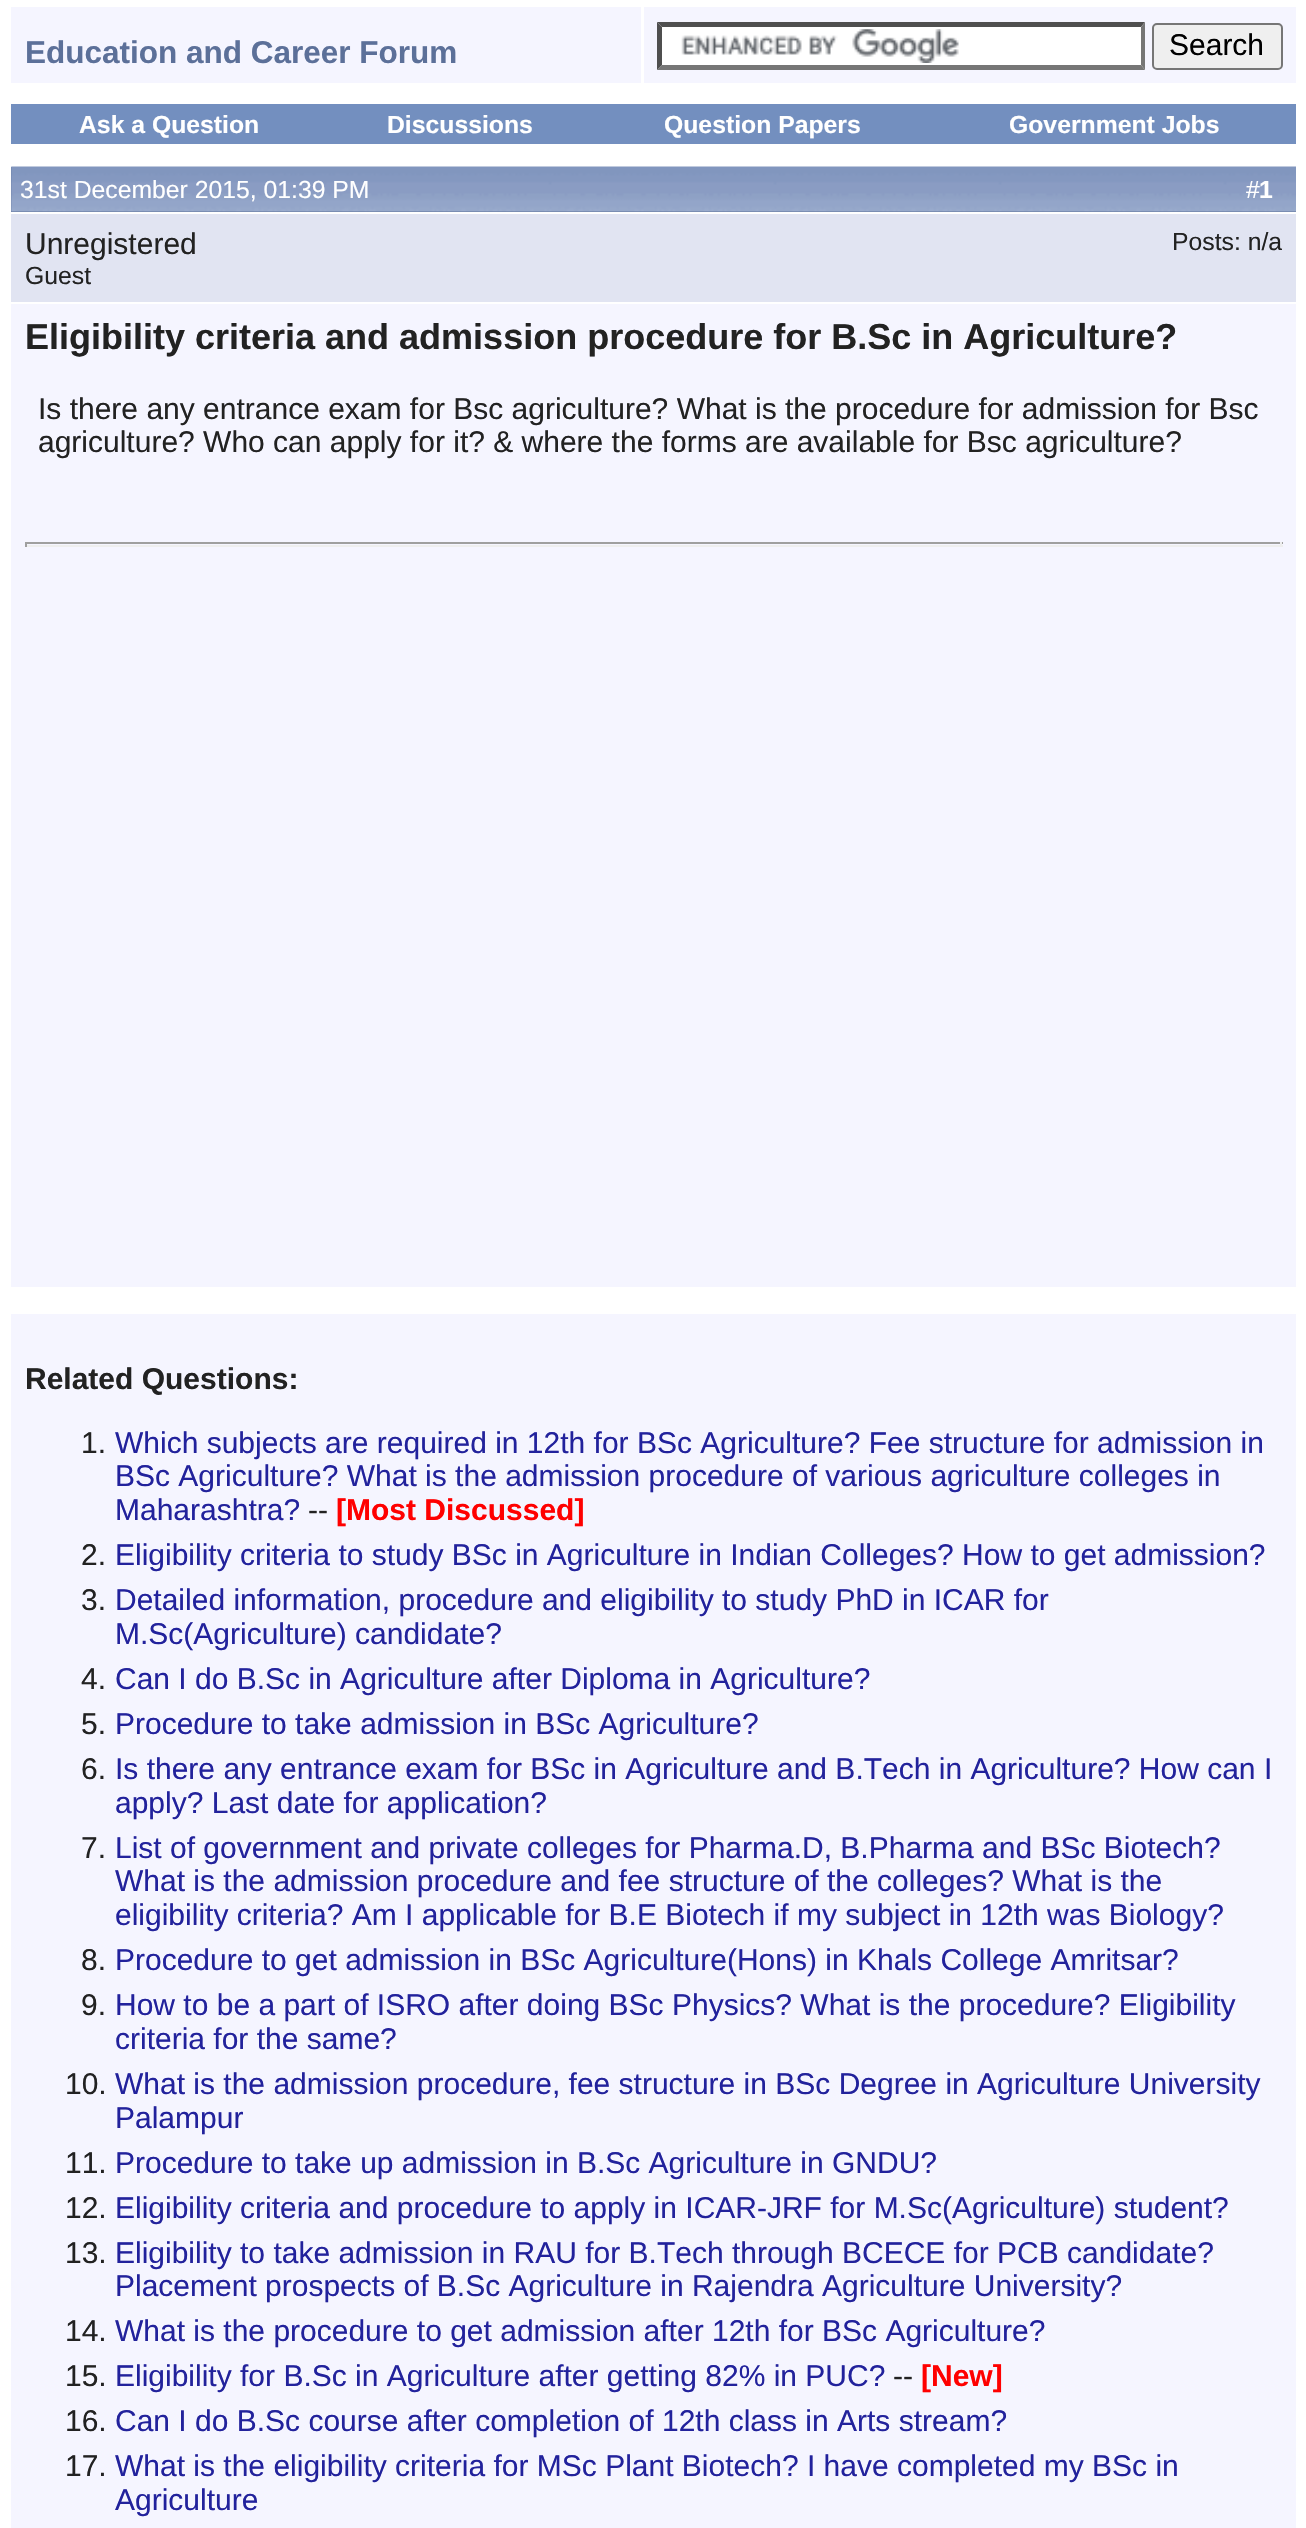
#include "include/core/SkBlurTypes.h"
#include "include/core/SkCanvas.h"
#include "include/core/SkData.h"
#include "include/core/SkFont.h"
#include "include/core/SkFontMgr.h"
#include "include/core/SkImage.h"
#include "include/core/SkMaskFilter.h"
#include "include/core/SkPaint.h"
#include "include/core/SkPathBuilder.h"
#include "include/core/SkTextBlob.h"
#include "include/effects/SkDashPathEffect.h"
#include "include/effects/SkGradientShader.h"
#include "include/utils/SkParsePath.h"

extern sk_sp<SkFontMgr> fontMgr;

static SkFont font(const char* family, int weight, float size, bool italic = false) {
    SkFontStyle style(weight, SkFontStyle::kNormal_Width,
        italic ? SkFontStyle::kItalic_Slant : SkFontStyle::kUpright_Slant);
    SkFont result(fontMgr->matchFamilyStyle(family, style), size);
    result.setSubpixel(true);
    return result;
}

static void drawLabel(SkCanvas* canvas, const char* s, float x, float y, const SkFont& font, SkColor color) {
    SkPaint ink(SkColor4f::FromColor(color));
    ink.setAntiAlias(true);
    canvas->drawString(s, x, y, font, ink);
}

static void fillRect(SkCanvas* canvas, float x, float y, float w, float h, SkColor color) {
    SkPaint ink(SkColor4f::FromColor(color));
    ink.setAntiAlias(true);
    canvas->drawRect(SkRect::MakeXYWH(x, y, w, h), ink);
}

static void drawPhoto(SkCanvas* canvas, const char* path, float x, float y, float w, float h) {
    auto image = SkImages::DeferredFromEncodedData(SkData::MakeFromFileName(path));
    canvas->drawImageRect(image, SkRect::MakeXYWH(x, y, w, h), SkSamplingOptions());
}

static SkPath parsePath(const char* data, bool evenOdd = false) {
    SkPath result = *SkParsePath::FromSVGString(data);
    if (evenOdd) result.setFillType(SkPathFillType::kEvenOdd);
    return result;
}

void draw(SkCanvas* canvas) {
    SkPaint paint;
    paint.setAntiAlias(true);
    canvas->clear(0xFFFFFFFF);
    fillRect(canvas, 11, 7, 630, 76, 0xFFF5F5FF);
    SkFont font1 = font("Liberation Sans", 700, 31.5f);
    drawLabel(canvas, "Education and Career Forum", 25, 63, font1, 0xFF5C7099);
    fillRect(canvas, 644, 7, 652, 76, 0xFFF5F5FF);
    fillRect(canvas, 657, 23, 488, 47, 0xFFFFFFFF);
    drawPhoto(canvas, "assets/img1.png", 681, 29, 278, 34);
    paint.setColor(0xFF4F4F4F);
    canvas->drawPath(parsePath("M657 22H1145L1141 27H662Z"), paint);
    paint.setColor(0xFF767676);
    canvas->drawPath(parsePath("M1145 22V70L1141 65V27Z"), paint);
    canvas->drawPath(parsePath("M1145 70H657L662 65H1141Z"), paint);
    paint.setColor(0xFF4F4F4F);
    canvas->drawPath(parsePath("M657 70V22L662 27V65Z"), paint);
    paint.setColor(0xFFEFEFEF);
    canvas->drawRoundRect(SkRect::MakeXYWH(1153, 24, 129, 45), 4, 4, paint);
    paint.setStroke(true);
    paint.setStrokeWidth(2);
    paint.setColor(0xFF767676);
    canvas->drawRoundRect(SkRect::MakeXYWH(1153, 24, 129, 45), 4, 4, paint);
    SkFont font2 = font("Liberation Sans", 400, 30);
    drawLabel(canvas, "Search", 1169, 55, font2, 0xFF000000);
    fillRect(canvas, 11, 104, 1285, 40, 0xFF738FBF);
    SkFont font3 = font("Liberation Sans", 700, 24.75f);
    drawLabel(canvas, "Ask a Question", 79, 133, font3, 0xFFFFFFFF);
    drawLabel(canvas, "Discussions", 387, 133, font3, 0xFFFFFFFF);
    drawLabel(canvas, "Question Papers", 664, 133, font3, 0xFFFFFFFF);
    drawLabel(canvas, "Government Jobs", 1009, 133, font3, 0xFFFFFFFF);
    fillRect(canvas, 11, 167, 1285, 45, 0xFF5C7099);
    drawPhoto(canvas, "assets/img2.png", 11, 166, 1285, 46);
    SkFont font4 = font("Liberation Sans", 400, 24.75f);
    drawLabel(canvas, "31st December 2015, 01:39 PM", 20, 198, font4, 0xFFFFFFFF);
    drawLabel(canvas, "#", 1246, 198, font4, 0xFFFFFFFF);
    drawLabel(canvas, "1", 1259, 198, font3, 0xFFFFFFFF);
    fillRect(canvas, 11, 214, 1285, 88, 0xFFE1E4F2);
    drawLabel(canvas, "Unregistered", 25, 254, font2, 0xFF222222);
    drawLabel(canvas, "Guest", 25, 284, font4, 0xFF222222);
    drawLabel(canvas, "Posts: n/a", 1172, 250, font4, 0xFF222222);
    fillRect(canvas, 11, 304, 1285, 983, 0xFFF5F5FF);
    SkFont font5 = font("Liberation Sans", 700, 36);
    drawLabel(canvas, "Eligibility criteria and admission procedure for B.Sc in Agriculture?", 25, 349, font5, 0xFF222222);
    drawLabel(canvas, "Is there any entrance exam for Bsc agriculture? What is the procedure for admission for Bsc", 38, 419, font2, 0xFF222222);
    drawLabel(canvas, "agriculture? Who can apply for it? & where the forms are available for Bsc agriculture?", 38, 452, font2, 0xFF222222);
    fillRect(canvas, 25, 542, 1258, 2, 0xFF9F9F9F);
    fillRect(canvas, 1280, 542, 2, 5, 0xFFEEEEEE);
    fillRect(canvas, 25, 545, 1258, 2, 0xFFEEEEEE);
    fillRect(canvas, 25, 542, 2, 5, 0xFF9F9F9F);
    fillRect(canvas, 11, 1314, 1285, 1214, 0xFFF5F5FF);
    SkFont font6 = font("Liberation Sans", 700, 30);
    drawLabel(canvas, "Related Questions:", 25, 1389, font6, 0xFF222222);
    drawLabel(canvas, "1.", 81, 1453, font2, 0xFF222222);
    drawLabel(canvas, "Which subjects are required in 12th for BSc Agriculture? Fee structure for admission in", 115, 1453, font2, 0xFF22229C);
    drawLabel(canvas, "BSc Agriculture? What is the admission procedure of various agriculture colleges in", 115, 1486, font2, 0xFF22229C);
    drawLabel(canvas, "Maharashtra?", 115, 1520, font2, 0xFF22229C);
    drawLabel(canvas, "--", 308, 1520, font2, 0xFF222222);
    drawLabel(canvas, "[Most Discussed]", 336, 1520, font6, 0xFFFF0000);
    drawLabel(canvas, "2.", 81, 1565, font2, 0xFF222222);
    drawLabel(canvas, "Eligibility criteria to study BSc in Agriculture in Indian Colleges? How to get admission?", 115, 1565, font2, 0xFF22229C);
    drawLabel(canvas, "3.", 81, 1610, font2, 0xFF222222);
    drawLabel(canvas, "Detailed information, procedure and eligibility to study PhD in ICAR for", 115, 1610, font2, 0xFF22229C);
    drawLabel(canvas, "M.Sc(Agriculture) candidate?", 115, 1644, font2, 0xFF22229C);
    drawLabel(canvas, "4.", 81, 1689, font2, 0xFF222222);
    drawLabel(canvas, "Can I do B.Sc in Agriculture after Diploma in Agriculture?", 115, 1689, font2, 0xFF22229C);
    drawLabel(canvas, "5.", 81, 1734, font2, 0xFF222222);
    drawLabel(canvas, "Procedure to take admission in BSc Agriculture?", 115, 1734, font2, 0xFF22229C);
    drawLabel(canvas, "6.", 81, 1779, font2, 0xFF222222);
    drawLabel(canvas, "Is there any entrance exam for BSc in Agriculture and B.Tech in Agriculture? How can I", 115, 1779, font2, 0xFF22229C);
    drawLabel(canvas, "apply? Last date for application?", 115, 1813, font2, 0xFF22229C);
    drawLabel(canvas, "7.", 81, 1858, font2, 0xFF222222);
    drawLabel(canvas, "List of government and private colleges for Pharma.D, B.Pharma and BSc Biotech?", 115, 1858, font2, 0xFF22229C);
    drawLabel(canvas, "What is the admission procedure and fee structure of the colleges? What is the", 115, 1891, font2, 0xFF22229C);
    drawLabel(canvas, "eligibility criteria? Am I applicable for B.E Biotech if my subject in 12th was Biology?", 115, 1925, font2, 0xFF22229C);
    drawLabel(canvas, "8.", 81, 1970, font2, 0xFF222222);
    drawLabel(canvas, "Procedure to get admission in BSc Agriculture(Hons) in Khals College Amritsar?", 115, 1970, font2, 0xFF22229C);
    drawLabel(canvas, "9.", 81, 2015, font2, 0xFF222222);
    drawLabel(canvas, "How to be a part of ISRO after doing BSc Physics? What is the procedure? Eligibility", 115, 2015, font2, 0xFF22229C);
    drawLabel(canvas, "criteria for the same?", 115, 2049, font2, 0xFF22229C);
    drawLabel(canvas, "10.", 65, 2094, font2, 0xFF222222);
    drawLabel(canvas, "What is the admission procedure, fee structure in BSc Degree in Agriculture University", 115, 2094, font2, 0xFF22229C);
    drawLabel(canvas, "Palampur", 115, 2128, font2, 0xFF22229C);
    drawLabel(canvas, "11.", 65, 2173, font2, 0xFF222222);
    drawLabel(canvas, "Procedure to take up admission in B.Sc Agriculture in GNDU?", 115, 2173, font2, 0xFF22229C);
    drawLabel(canvas, "12.", 65, 2218, font2, 0xFF222222);
    drawLabel(canvas, "Eligibility criteria and procedure to apply in ICAR-JRF for M.Sc(Agriculture) student?", 115, 2218, font2, 0xFF22229C);
    drawLabel(canvas, "13.", 65, 2263, font2, 0xFF222222);
    drawLabel(canvas, "Eligibility to take admission in RAU for B.Tech through BCECE for PCB candidate?", 115, 2263, font2, 0xFF22229C);
    drawLabel(canvas, "Placement prospects of B.Sc Agriculture in Rajendra Agriculture University?", 115, 2296, font2, 0xFF22229C);
    drawLabel(canvas, "14.", 65, 2341, font2, 0xFF222222);
    drawLabel(canvas, "What is the procedure to get admission after 12th for BSc Agriculture?", 115, 2341, font2, 0xFF22229C);
    drawLabel(canvas, "15.", 65, 2386, font2, 0xFF222222);
    drawLabel(canvas, "Eligibility for B.Sc in Agriculture after getting 82% in PUC?", 115, 2386, font2, 0xFF22229C);
    drawLabel(canvas, "--", 893, 2386, font2, 0xFF222222);
    drawLabel(canvas, "[New]", 921, 2386, font6, 0xFFFF0000);
    drawLabel(canvas, "16.", 65, 2431, font2, 0xFF222222);
    drawLabel(canvas, "Can I do B.Sc course after completion of 12th class in Arts stream?", 115, 2431, font2, 0xFF22229C);
    drawLabel(canvas, "17.", 65, 2476, font2, 0xFF222222);
    drawLabel(canvas, "What is the eligibility criteria for MSc Plant Biotech? I have completed my BSc in", 115, 2476, font2, 0xFF22229C);
    drawLabel(canvas, "Agriculture", 115, 2510, font2, 0xFF22229C);
}
